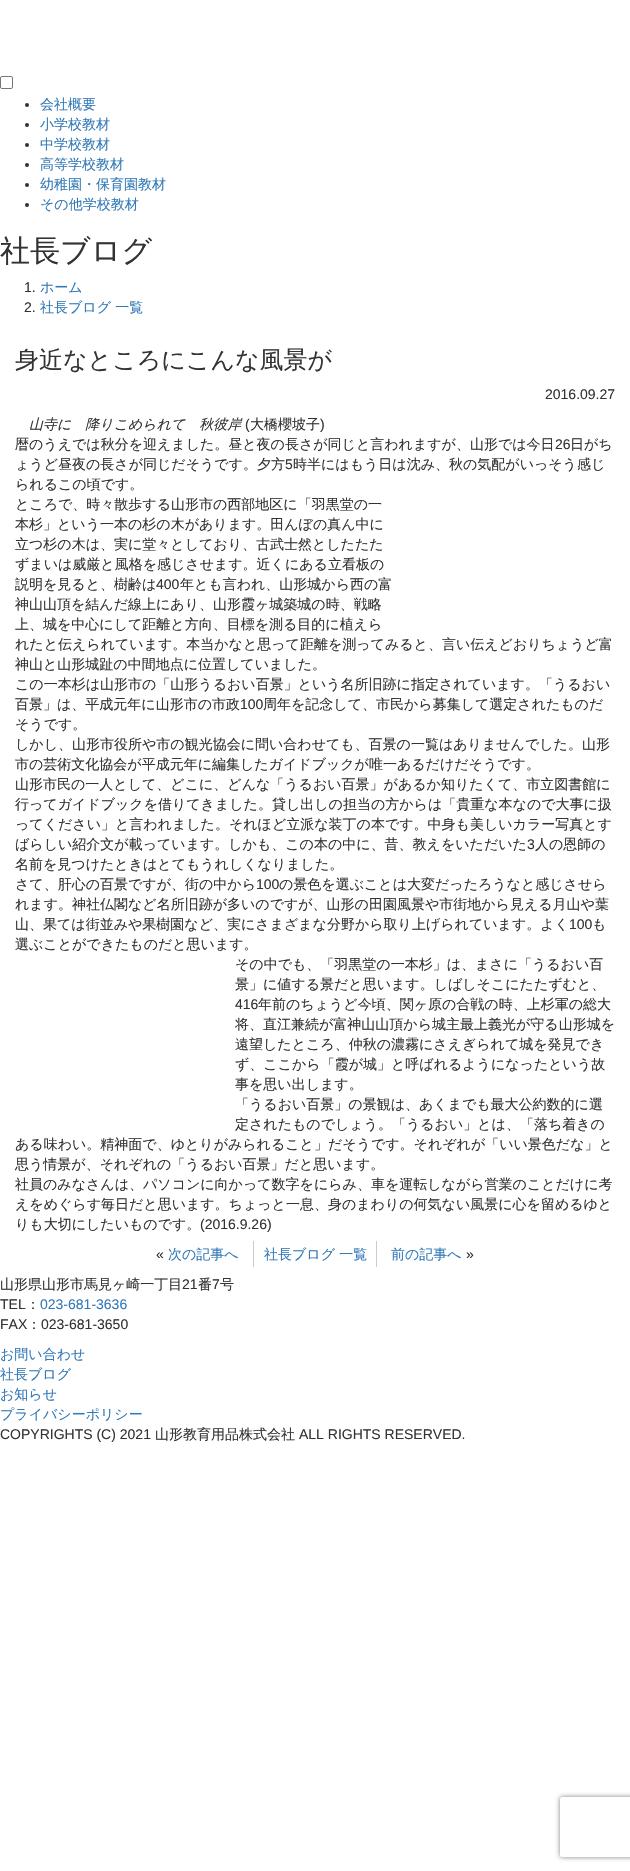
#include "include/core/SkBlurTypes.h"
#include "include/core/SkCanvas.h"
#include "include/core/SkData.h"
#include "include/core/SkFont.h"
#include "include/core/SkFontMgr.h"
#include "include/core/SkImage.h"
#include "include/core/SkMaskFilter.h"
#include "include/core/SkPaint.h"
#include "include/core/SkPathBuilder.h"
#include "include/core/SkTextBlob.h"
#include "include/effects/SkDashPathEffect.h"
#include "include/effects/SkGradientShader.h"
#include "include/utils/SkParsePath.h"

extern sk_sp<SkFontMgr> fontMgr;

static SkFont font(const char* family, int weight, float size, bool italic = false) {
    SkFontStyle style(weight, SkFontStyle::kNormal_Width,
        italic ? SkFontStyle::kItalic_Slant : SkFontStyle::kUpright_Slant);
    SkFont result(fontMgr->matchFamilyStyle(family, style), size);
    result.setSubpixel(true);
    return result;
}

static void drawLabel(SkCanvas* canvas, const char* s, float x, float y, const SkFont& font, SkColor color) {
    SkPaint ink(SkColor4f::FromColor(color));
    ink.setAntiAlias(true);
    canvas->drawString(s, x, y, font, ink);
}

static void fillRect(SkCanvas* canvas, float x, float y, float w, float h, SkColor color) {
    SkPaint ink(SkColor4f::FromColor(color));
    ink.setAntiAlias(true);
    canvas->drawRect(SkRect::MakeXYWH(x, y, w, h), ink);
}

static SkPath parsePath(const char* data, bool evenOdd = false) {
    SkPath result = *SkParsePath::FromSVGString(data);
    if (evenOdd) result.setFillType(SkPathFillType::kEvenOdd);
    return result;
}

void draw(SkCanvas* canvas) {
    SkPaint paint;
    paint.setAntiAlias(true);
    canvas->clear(0xFFFFFFFF);
    paint.setStroke(true);
    paint.setStrokeWidth(1);
    paint.setColor(0xFF767676);
    canvas->drawRoundRect(SkRect::MakeXYWH(0.5f, 76.5f, 12, 12), 1.5f, 1.5f, paint);
    paint.setStroke(false);
    paint.setColor(0xFF333333);
    canvas->drawCircle(27, 105, 2, paint);
    SkFont font1 = font("WenQuanYi Zen Hei", 500, 14);
    drawLabel(canvas, "会社概要", 40, 109, font1, 0xFF337AB7);
    canvas->drawCircle(27, 125, 2, paint);
    drawLabel(canvas, "小学校教材", 40, 129, font1, 0xFF337AB7);
    canvas->drawCircle(27, 145, 2, paint);
    drawLabel(canvas, "中学校教材", 40, 149, font1, 0xFF337AB7);
    canvas->drawCircle(27, 165, 2, paint);
    drawLabel(canvas, "高等学校教材", 40, 169, font1, 0xFF337AB7);
    canvas->drawCircle(27, 185, 2, paint);
    drawLabel(canvas, "幼稚園・保育園教材", 40, 189, font1, 0xFF337AB7);
    canvas->drawCircle(27, 205, 2, paint);
    drawLabel(canvas, "その他学校教材", 40, 209, font1, 0xFF337AB7);
    SkFont font2 = font("WenQuanYi Zen Hei", 500, 30);
    drawLabel(canvas, "社長ブログ", 0, 261, font2, 0xFF333333);
    SkFont font3 = font("Liberation Sans", 400, 14);
    drawLabel(canvas, "1.", 24, 292, font3, 0xFF333333);
    drawLabel(canvas, "ホーム", 40, 292, font1, 0xFF337AB7);
    drawLabel(canvas, "2.", 24, 312, font3, 0xFF333333);
    drawLabel(canvas, "社長ブログ 一覧", 40, 312, font1, 0xFF337AB7);
    SkFont font4 = font("WenQuanYi Zen Hei", 500, 24);
    drawLabel(canvas, "身近なところにこんな風景が", 15, 368, font4, 0xFF333333);
    drawLabel(canvas, "2016.09.27", 545, 399, font3, 0xFF333333);
    SkFont font5 = font("WenQuanYi Zen Hei", 500, 14, true);
    drawLabel(canvas, "山寺に　降りこめられて　秋彼岸", 29, 429, font5, 0xFF333333);
    drawLabel(canvas, "(", 245, 429, font3, 0xFF333333);
    drawLabel(canvas, "大橋櫻坡子", 250, 429, font1, 0xFF333333);
    drawLabel(canvas, ")", 320, 429, font3, 0xFF333333);
    drawLabel(canvas, "暦のうえでは秋分を迎えました。昼と夜の長さが同じと言われますが、山形では今日", 15, 449, font1, 0xFF333333);
    drawLabel(canvas, "26", 555, 449, font3, 0xFF333333);
    drawLabel(canvas, "日がち", 570, 449, font1, 0xFF333333);
    drawLabel(canvas, "ょうど昼夜の長さが同じだそうです。夕方", 15, 469, font1, 0xFF333333);
    drawLabel(canvas, "5", 285, 469, font3, 0xFF333333);
    drawLabel(canvas, "時半にはもう日は沈み、秋の気配がいっそう感じ", 293, 469, font1, 0xFF333333);
    drawLabel(canvas, "られるこの頃です。", 15, 489, font1, 0xFF333333);
    drawLabel(canvas, "ところで、時々散歩する山形市の西部地区に「羽黒堂の一", 15, 509, font1, 0xFF333333);
    drawLabel(canvas, "本杉」という一本の杉の木があります。田んぼの真ん中に", 15, 529, font1, 0xFF333333);
    drawLabel(canvas, "立つ杉の木は、実に堂々としており、古武士然としたたた", 15, 549, font1, 0xFF333333);
    drawLabel(canvas, "ずまいは威厳と風格を感じさせます。近くにある立看板の", 15, 569, font1, 0xFF333333);
    drawLabel(canvas, "説明を見ると、樹齢は", 15, 589, font1, 0xFF333333);
    drawLabel(canvas, "400", 156, 589, font3, 0xFF333333);
    drawLabel(canvas, "年とも言われ、山形城から西の富", 180, 589, font1, 0xFF333333);
    drawLabel(canvas, "神山山頂を結んだ線上にあり、山形霞ヶ城築城の時、戦略", 15, 609, font1, 0xFF333333);
    drawLabel(canvas, "上、城を中心にして距離と方向、目標を測る目的に植えら", 15, 629, font1, 0xFF333333);
    drawLabel(canvas, "れたと伝えられています。本当かなと思って距離を測ってみると、言い伝えどおりちょうど富", 15, 649, font1, 0xFF333333);
    drawLabel(canvas, "神山と山形城趾の中間地点に位置していました。", 15, 669, font1, 0xFF333333);
    drawLabel(canvas, "この一本杉は山形市の「山形うるおい百景」という名所旧跡に指定されています。「うるおい", 15, 689, font1, 0xFF333333);
    drawLabel(canvas, "百景」は、平成元年に山形市の市政", 15, 709, font1, 0xFF333333);
    drawLabel(canvas, "100", 240, 709, font3, 0xFF333333);
    drawLabel(canvas, "周年を記念して、市民から募集して選定されたものだ", 263, 709, font1, 0xFF333333);
    drawLabel(canvas, "そうです。", 15, 729, font1, 0xFF333333);
    drawLabel(canvas, "しかし、山形市役所や市の観光協会に問い合わせても、百景の一覧はありませんでした。山形", 15, 749, font1, 0xFF333333);
    drawLabel(canvas, "市の芸術文化協会が平成元年に編集したガイドブックが唯一あるだけだそうです。", 15, 769, font1, 0xFF333333);
    drawLabel(canvas, "山形市民の一人として、どこに、どんな「うるおい百景」があるか知りたくて、市立図書館に", 15, 789, font1, 0xFF333333);
    drawLabel(canvas, "行ってガイドブックを借りてきました。貸し出しの担当の方からは「貴重な本なので大事に扱", 15, 809, font1, 0xFF333333);
    drawLabel(canvas, "ってください」と言われました。それほど立派な装丁の本です。中身も美しいカラー写真とす", 15, 829, font1, 0xFF333333);
    drawLabel(canvas, "ばらしい紹介文が載っています。しかも、この本の中に、昔、教えをいただいた", 15, 849, font1, 0xFF333333);
    drawLabel(canvas, "3", 527, 849, font3, 0xFF333333);
    drawLabel(canvas, "人の恩師の", 535, 849, font1, 0xFF333333);
    drawLabel(canvas, "名前を見つけたときはとてもうれしくなりました。", 15, 869, font1, 0xFF333333);
    drawLabel(canvas, "さて、肝心の百景ですが、街の中から", 15, 889, font1, 0xFF333333);
    drawLabel(canvas, "100", 256, 889, font3, 0xFF333333);
    drawLabel(canvas, "の景色を選ぶことは大変だったろうなと感じさせら", 279, 889, font1, 0xFF333333);
    drawLabel(canvas, "れます。神社仏閣など名所旧跡が多いのですが、山形の田園風景や市街地から見える月山や葉", 15, 909, font1, 0xFF333333);
    drawLabel(canvas, "山、果ては街並みや果樹園など、実にさまざまな分野から取り上げられています。よく", 15, 929, font1, 0xFF333333);
    drawLabel(canvas, "100", 569, 929, font3, 0xFF333333);
    drawLabel(canvas, "も", 592, 929, font1, 0xFF333333);
    drawLabel(canvas, "選ぶことができたものだと思います。", 15, 949, font1, 0xFF333333);
    drawLabel(canvas, "その中でも、「羽黒堂の一本杉」は、まさに「うるおい百", 235, 969, font1, 0xFF333333);
    drawLabel(canvas, "景」に値する景だと思います。しばしそこにたたずむと、", 235, 989, font1, 0xFF333333);
    drawLabel(canvas, "416", 235, 1009, font3, 0xFF333333);
    drawLabel(canvas, "年前のちょうど今頃、関ヶ原の合戦の時、上杉軍の総大", 258, 1009, font1, 0xFF333333);
    drawLabel(canvas, "将、直江兼続が富神山山頂から城主最上義光が守る山形城を", 235, 1029, font1, 0xFF333333);
    drawLabel(canvas, "遠望したところ、仲秋の濃霧にさえぎられて城を発見でき", 235, 1049, font1, 0xFF333333);
    drawLabel(canvas, "ず、ここから「霞が城」と呼ばれるようになったという故", 235, 1069, font1, 0xFF333333);
    drawLabel(canvas, "事を思い出します。", 235, 1089, font1, 0xFF333333);
    drawLabel(canvas, "「うるおい百景」の景観は、あくまでも最大公約数的に選", 235, 1109, font1, 0xFF333333);
    drawLabel(canvas, "定されたものでしょう。「うるおい」とは、「落ち着きの", 235, 1129, font1, 0xFF333333);
    drawLabel(canvas, "ある味わい。精神面で、ゆとりがみられること」だそうです。それぞれが「いい景色だな」と", 15, 1149, font1, 0xFF333333);
    drawLabel(canvas, "思う情景が、それぞれの「うるおい百景」だと思います。", 15, 1169, font1, 0xFF333333);
    drawLabel(canvas, "社員のみなさんは、パソコンに向かって数字をにらみ、車を運転しながら営業のことだけに考", 15, 1189, font1, 0xFF333333);
    drawLabel(canvas, "えをめぐらす毎日だと思います。ちょっと一息、身のまわりの何気ない風景に心を留めるゆと", 15, 1209, font1, 0xFF333333);
    drawLabel(canvas, "りも大切にしたいものです。", 15, 1229, font1, 0xFF333333);
    drawLabel(canvas, "(2016.9.26)", 200, 1229, font3, 0xFF333333);
    drawLabel(canvas, "«", 156, 1259, font3, 0xFF333333);
    drawLabel(canvas, "次の記事へ", 168, 1259, font1, 0xFF337AB7);
    drawLabel(canvas, "社長ブログ 一覧", 264, 1259, font1, 0xFF337AB7);
    fillRect(canvas, 376, 1241, 1, 26, 0xFFCCCCCC);
    fillRect(canvas, 253, 1241, 1, 26, 0xFFCCCCCC);
    drawLabel(canvas, "前の記事へ", 391, 1259, font1, 0xFF337AB7);
    drawLabel(canvas, "»", 466, 1259, font3, 0xFF333333);
    drawLabel(canvas, "山形県山形市馬見ヶ崎一丁目", 0, 1289, font1, 0xFF333333);
    drawLabel(canvas, "21", 182, 1289, font3, 0xFF333333);
    drawLabel(canvas, "番", 198, 1289, font1, 0xFF333333);
    drawLabel(canvas, "7", 212, 1289, font3, 0xFF333333);
    drawLabel(canvas, "号", 220, 1289, font1, 0xFF333333);
    drawLabel(canvas, "TEL", 0, 1309, font3, 0xFF333333);
    drawLabel(canvas, "：", 26, 1309, font1, 0xFF333333);
    drawLabel(canvas, "023-681-3636", 40, 1309, font3, 0xFF337AB7);
    drawLabel(canvas, "FAX", 0, 1329, font3, 0xFF333333);
    drawLabel(canvas, "：", 27, 1329, font1, 0xFF333333);
    drawLabel(canvas, "023-681-3650", 41, 1329, font3, 0xFF333333);
    drawLabel(canvas, "お問い合わせ", 0, 1359, font1, 0xFF337AB7);
    drawLabel(canvas, "社長ブログ", 0, 1379, font1, 0xFF337AB7);
    drawLabel(canvas, "お知らせ", 0, 1399, font1, 0xFF337AB7);
    drawLabel(canvas, "プライバシーポリシー", 0, 1419, font1, 0xFF337AB7);
    drawLabel(canvas, "COPYRIGHTS (C) 2021", 0, 1439, font3, 0xFF333333);
    drawLabel(canvas, "山形教育用品株式会社", 155, 1439, font1, 0xFF333333);
    drawLabel(canvas, "ALL RIGHTS RESERVED.", 299, 1439, font3, 0xFF333333);
    canvas->save();
    canvas->clipPath(parsePath("M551 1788H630V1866H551ZM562 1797H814C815 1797 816 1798 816 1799V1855C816 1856 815 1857 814 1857H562C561 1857 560 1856 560 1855V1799C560 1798 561 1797 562 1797Z", true), true);
    paint.setColor(0xFF808080);
    paint.setMaskFilter(SkMaskFilter::MakeBlur(kNormal_SkBlurStyle, 2.5f));
    canvas->drawRoundRect(SkRect::MakeXYWH(560, 1797, 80, 60), 2, 2, paint);
    paint.setMaskFilter(nullptr);
    canvas->restore();
}
